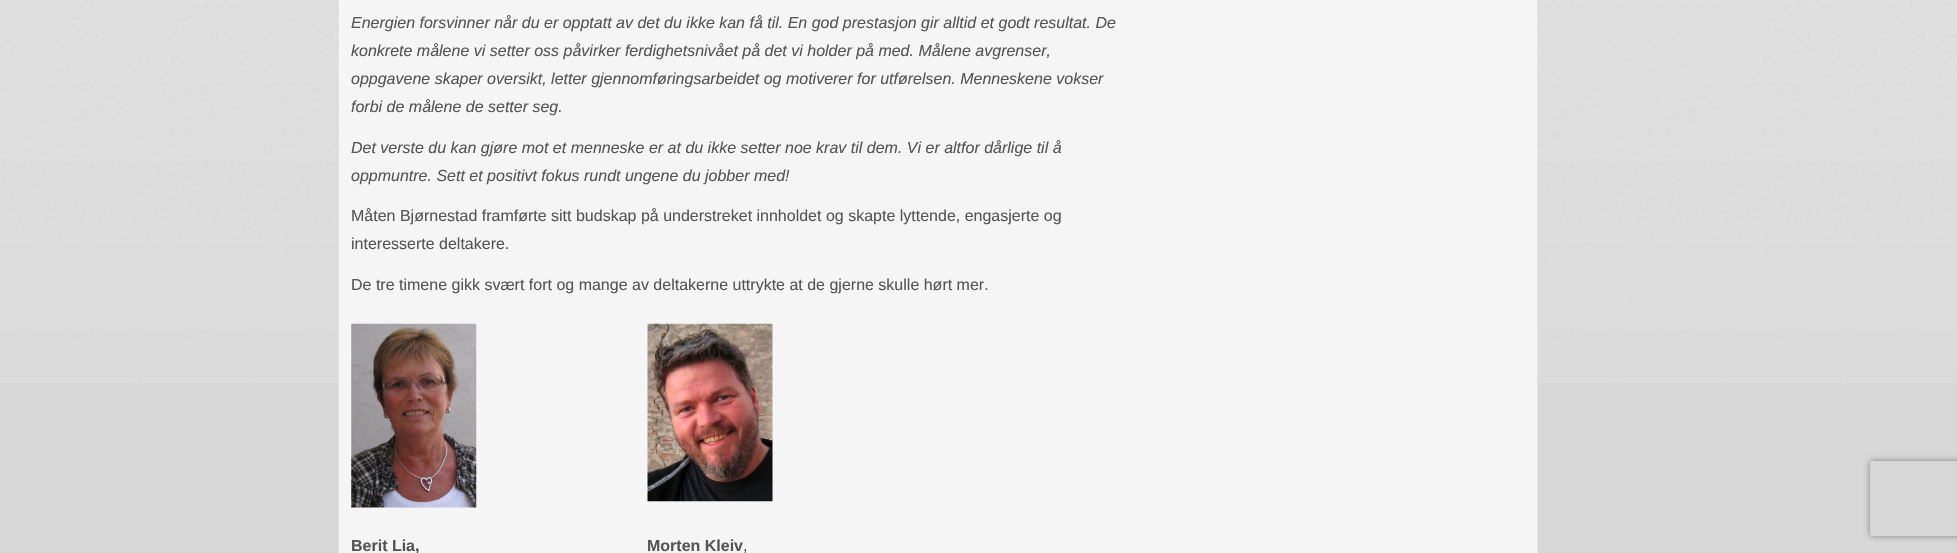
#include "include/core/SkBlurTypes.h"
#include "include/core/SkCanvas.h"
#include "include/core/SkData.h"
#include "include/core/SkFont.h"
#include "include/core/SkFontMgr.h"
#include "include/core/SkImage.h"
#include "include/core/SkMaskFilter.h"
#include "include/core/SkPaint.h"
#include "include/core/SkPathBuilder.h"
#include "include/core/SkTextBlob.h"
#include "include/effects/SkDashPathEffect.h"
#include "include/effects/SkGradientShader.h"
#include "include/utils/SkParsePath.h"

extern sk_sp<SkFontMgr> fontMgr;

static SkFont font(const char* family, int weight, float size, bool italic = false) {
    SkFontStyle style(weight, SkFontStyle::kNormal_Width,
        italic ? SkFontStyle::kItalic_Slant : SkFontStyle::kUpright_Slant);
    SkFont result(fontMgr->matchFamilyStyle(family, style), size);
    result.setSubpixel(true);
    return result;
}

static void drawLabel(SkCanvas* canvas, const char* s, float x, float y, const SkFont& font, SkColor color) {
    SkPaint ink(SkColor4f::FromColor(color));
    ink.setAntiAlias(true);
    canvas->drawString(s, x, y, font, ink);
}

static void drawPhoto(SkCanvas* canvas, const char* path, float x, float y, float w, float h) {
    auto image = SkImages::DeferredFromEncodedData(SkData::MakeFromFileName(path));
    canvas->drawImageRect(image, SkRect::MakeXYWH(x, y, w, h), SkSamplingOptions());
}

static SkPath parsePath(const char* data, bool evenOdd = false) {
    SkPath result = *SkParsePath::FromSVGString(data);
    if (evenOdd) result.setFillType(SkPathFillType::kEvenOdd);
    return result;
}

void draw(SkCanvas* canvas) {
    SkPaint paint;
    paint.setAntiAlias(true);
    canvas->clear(0xFFD7D7D7);
    drawPhoto(canvas, "assets/img1.png", 0, 0, 1957, 383);
    paint.setColor(0xFFF5F5F5);
    canvas->drawRect(SkRect::MakeXYWH(338.5f, -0.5f, 1199, 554), paint);
    paint.setStroke(true);
    paint.setStrokeWidth(1);
    paint.setColor(0xFFE2E2E2);
    canvas->drawRect(SkRect::MakeXYWH(338.5f, -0.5f, 1199, 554), paint);
    SkFont font1 = font("Liberation Sans", 400, 16, true);
    drawLabel(canvas, "Energien forsvinner når du er opptatt av det du ikke kan få til. En god prestasjon gir alltid et godt resultat. De", 351, 28, font1, 0xFF555555);
    drawLabel(canvas, "konkrete målene vi setter oss påvirker ferdighetsnivået på det vi holder på med. Målene avgrenser,", 351, 56, font1, 0xFF555555);
    drawLabel(canvas, "oppgavene skaper oversikt, letter gjennomføringsarbeidet og motiverer for utførelsen. Menneskene vokser", 351, 84, font1, 0xFF555555);
    drawLabel(canvas, "forbi de målene de setter seg.", 351, 112, font1, 0xFF555555);
    drawLabel(canvas, "Det verste du kan gjøre mot et menneske er at du ikke setter noe krav til dem. Vi er altfor dårlige til å", 351, 153, font1, 0xFF555555);
    drawLabel(canvas, "oppmuntre. Sett et positivt fokus rundt ungene du jobber med!", 351, 181, font1, 0xFF555555);
    SkFont font2 = font("Liberation Sans", 400, 16);
    drawLabel(canvas, "Måten Bjørnestad framførte sitt budskap på understreket innholdet og skapte lyttende, engasjerte og", 351, 221, font2, 0xFF555555);
    drawLabel(canvas, "interesserte deltakere.", 351, 249, font2, 0xFF555555);
    drawLabel(canvas, "De tre timene gikk svært fort og mange av deltakerne uttrykte at de gjerne skulle hørt mer.", 351, 290, font2, 0xFF555555);
    drawPhoto(canvas, "assets/img2.png", 351, 323, 126, 185);
    drawPhoto(canvas, "assets/img3.png", 647, 323, 126, 179);
    SkFont font3 = font("Liberation Sans", 700, 16);
    drawLabel(canvas, "Berit Lia,", 351, 551, font3, 0xFF555555);
    drawLabel(canvas, "Morten Kleiv", 647, 551, font3, 0xFF555555);
    drawLabel(canvas, ",", 743, 551, font2, 0xFF555555);
    canvas->save();
    canvas->clipPath(parsePath("M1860 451H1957V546H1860ZM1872.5 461H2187.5C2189 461 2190 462 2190 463.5V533.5C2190 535 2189 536 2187.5 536H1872.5C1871 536 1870 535 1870 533.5V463.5C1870 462 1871 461 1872.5 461Z", true), true);
    paint.setStroke(false);
    paint.setColor(0xFF808080);
    paint.setMaskFilter(SkMaskFilter::MakeBlur(kNormal_SkBlurStyle, 3));
    canvas->drawRoundRect(SkRect::MakeXYWH(1870, 461, 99, 75), 2.5f, 2.5f, paint);
    paint.setMaskFilter(nullptr);
    canvas->restore();
}
